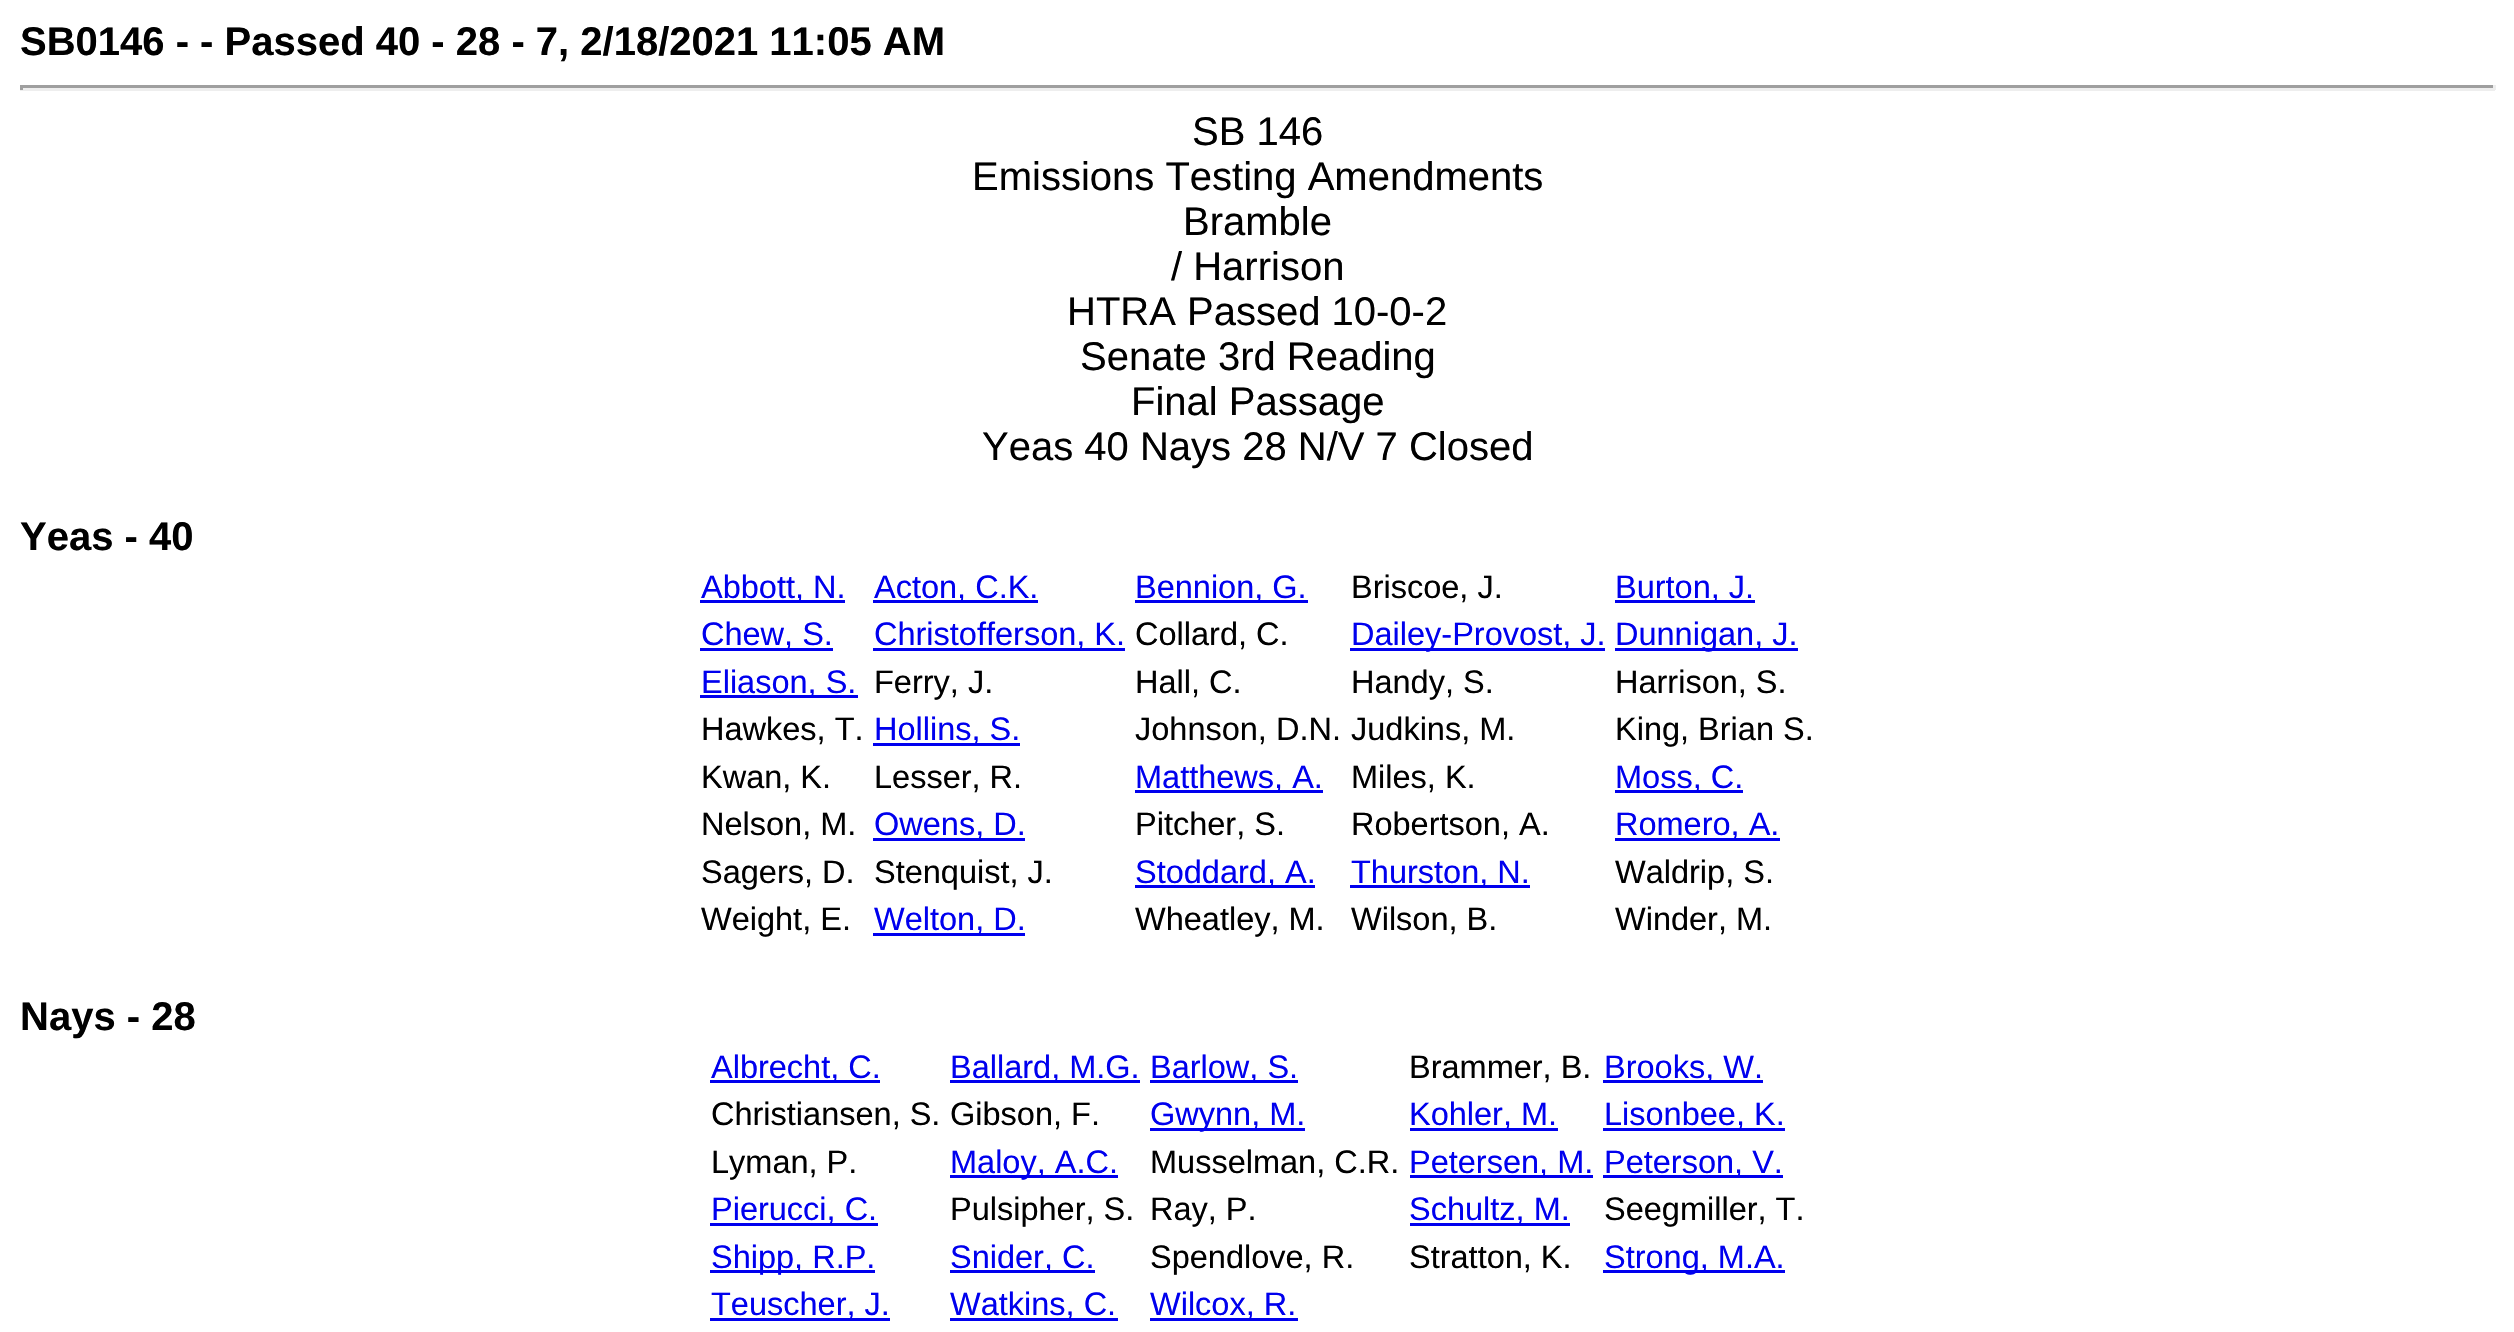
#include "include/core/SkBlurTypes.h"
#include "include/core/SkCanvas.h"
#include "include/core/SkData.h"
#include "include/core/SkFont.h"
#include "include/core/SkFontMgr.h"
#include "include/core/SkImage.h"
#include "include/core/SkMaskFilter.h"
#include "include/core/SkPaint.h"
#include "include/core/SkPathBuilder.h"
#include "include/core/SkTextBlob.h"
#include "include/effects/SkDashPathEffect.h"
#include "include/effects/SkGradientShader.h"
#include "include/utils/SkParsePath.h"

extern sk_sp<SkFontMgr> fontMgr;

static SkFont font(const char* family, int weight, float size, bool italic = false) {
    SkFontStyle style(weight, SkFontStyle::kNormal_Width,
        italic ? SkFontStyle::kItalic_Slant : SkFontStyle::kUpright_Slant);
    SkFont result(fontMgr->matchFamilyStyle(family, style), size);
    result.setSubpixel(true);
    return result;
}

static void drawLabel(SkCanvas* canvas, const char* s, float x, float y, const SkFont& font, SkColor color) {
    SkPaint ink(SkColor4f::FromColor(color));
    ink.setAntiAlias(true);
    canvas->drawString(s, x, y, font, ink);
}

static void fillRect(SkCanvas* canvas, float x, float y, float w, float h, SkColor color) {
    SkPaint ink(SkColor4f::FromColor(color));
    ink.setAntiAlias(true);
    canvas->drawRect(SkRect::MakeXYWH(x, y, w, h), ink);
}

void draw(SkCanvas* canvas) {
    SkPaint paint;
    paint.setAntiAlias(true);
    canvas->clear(0xFFFFFFFF);
    SkFont font1 = font("Liberation Sans", 700, 40);
    drawLabel(canvas, "SB0146 - - Passed 40 - 28 - 7, 2/18/2021 11:05 AM", 20, 55, font1, 0xFF000000);
    fillRect(canvas, 20, 85, 2475, 3, 0xFF9F9F9F);
    fillRect(canvas, 2493, 85, 3, 5, 0xFFEEEEEE);
    fillRect(canvas, 20, 88, 2475, 3, 0xFFEEEEEE);
    fillRect(canvas, 20, 85, 3, 5, 0xFF9F9F9F);
    SkFont font2 = font("Liberation Sans", 400, 40);
    drawLabel(canvas, "SB 146", 1192, 145, font2, 0xFF000000);
    drawLabel(canvas, "Emissions Testing Amendments", 972, 190, font2, 0xFF000000);
    drawLabel(canvas, "Bramble", 1183, 235, font2, 0xFF000000);
    drawLabel(canvas, "/ Harrison", 1171, 280, font2, 0xFF000000);
    drawLabel(canvas, "HTRA Passed 10-0-2", 1067, 325, font2, 0xFF000000);
    drawLabel(canvas, "Senate 3rd Reading", 1080, 370, font2, 0xFF000000);
    drawLabel(canvas, "Final Passage", 1131, 415, font2, 0xFF000000);
    drawLabel(canvas, "Yeas 40 Nays 28 N/V 7 Closed", 982, 460, font2, 0xFF000000);
    drawLabel(canvas, "Yeas - 40", 20, 550, font1, 0xFF000000);
    fillRect(canvas, 700, 600, 145, 3, 0xFF0000EE);
    SkFont font3 = font("Liberation Sans", 400, 32.5f);
    drawLabel(canvas, "Abbott, N.", 701, 598, font3, 0xFF0000EE);
    fillRect(canvas, 873, 600, 165, 3, 0xFF0000EE);
    drawLabel(canvas, "Acton, C.K.", 874, 598, font3, 0xFF0000EE);
    fillRect(canvas, 1135, 600, 173, 3, 0xFF0000EE);
    drawLabel(canvas, "Bennion, G.", 1135, 598, font3, 0xFF0000EE);
    drawLabel(canvas, "Briscoe, J.", 1351, 598, font3, 0xFF000000);
    fillRect(canvas, 1615, 600, 140, 3, 0xFF0000EE);
    drawLabel(canvas, "Burton, J.", 1615, 598, font3, 0xFF0000EE);
    fillRect(canvas, 700, 648, 133, 3, 0xFF0000EE);
    drawLabel(canvas, "Chew, S.", 701, 645, font3, 0xFF0000EE);
    fillRect(canvas, 873, 648, 252, 3, 0xFF0000EE);
    drawLabel(canvas, "Christofferson, K.", 874, 645, font3, 0xFF0000EE);
    drawLabel(canvas, "Collard, C.", 1135, 645, font3, 0xFF000000);
    fillRect(canvas, 1350, 648, 255, 3, 0xFF0000EE);
    drawLabel(canvas, "Dailey-Provost, J.", 1351, 645, font3, 0xFF0000EE);
    fillRect(canvas, 1615, 648, 183, 3, 0xFF0000EE);
    drawLabel(canvas, "Dunnigan, J.", 1615, 645, font3, 0xFF0000EE);
    fillRect(canvas, 700, 695, 158, 3, 0xFF0000EE);
    drawLabel(canvas, "Eliason, S.", 701, 693, font3, 0xFF0000EE);
    drawLabel(canvas, "Ferry, J.", 874, 693, font3, 0xFF000000);
    drawLabel(canvas, "Hall, C.", 1135, 693, font3, 0xFF000000);
    drawLabel(canvas, "Handy, S.", 1351, 693, font3, 0xFF000000);
    drawLabel(canvas, "Harrison, S.", 1615, 693, font3, 0xFF000000);
    drawLabel(canvas, "Hawkes, T.", 701, 740, font3, 0xFF000000);
    fillRect(canvas, 873, 743, 147, 3, 0xFF0000EE);
    drawLabel(canvas, "Hollins, S.", 874, 740, font3, 0xFF0000EE);
    drawLabel(canvas, "Johnson, D.N.", 1135, 740, font3, 0xFF000000);
    drawLabel(canvas, "Judkins, M.", 1351, 740, font3, 0xFF000000);
    drawLabel(canvas, "King, Brian S.", 1615, 740, font3, 0xFF000000);
    drawLabel(canvas, "Kwan, K.", 701, 788, font3, 0xFF000000);
    drawLabel(canvas, "Lesser, R.", 874, 788, font3, 0xFF000000);
    fillRect(canvas, 1135, 790, 188, 3, 0xFF0000EE);
    drawLabel(canvas, "Matthews, A.", 1135, 788, font3, 0xFF0000EE);
    drawLabel(canvas, "Miles, K.", 1351, 788, font3, 0xFF000000);
    fillRect(canvas, 1615, 790, 128, 3, 0xFF0000EE);
    drawLabel(canvas, "Moss, C.", 1615, 788, font3, 0xFF0000EE);
    drawLabel(canvas, "Nelson, M.", 701, 835, font3, 0xFF000000);
    fillRect(canvas, 873, 838, 152, 3, 0xFF0000EE);
    drawLabel(canvas, "Owens, D.", 874, 835, font3, 0xFF0000EE);
    drawLabel(canvas, "Pitcher, S.", 1135, 835, font3, 0xFF000000);
    drawLabel(canvas, "Robertson, A.", 1351, 835, font3, 0xFF000000);
    fillRect(canvas, 1615, 838, 165, 3, 0xFF0000EE);
    drawLabel(canvas, "Romero, A.", 1615, 835, font3, 0xFF0000EE);
    drawLabel(canvas, "Sagers, D.", 701, 883, font3, 0xFF000000);
    drawLabel(canvas, "Stenquist, J.", 874, 883, font3, 0xFF000000);
    fillRect(canvas, 1135, 885, 180, 3, 0xFF0000EE);
    drawLabel(canvas, "Stoddard, A.", 1135, 883, font3, 0xFF0000EE);
    fillRect(canvas, 1350, 885, 180, 3, 0xFF0000EE);
    drawLabel(canvas, "Thurston, N.", 1351, 883, font3, 0xFF0000EE);
    drawLabel(canvas, "Waldrip, S.", 1615, 883, font3, 0xFF000000);
    drawLabel(canvas, "Weight, E.", 701, 930, font3, 0xFF000000);
    fillRect(canvas, 873, 933, 152, 3, 0xFF0000EE);
    drawLabel(canvas, "Welton, D.", 874, 930, font3, 0xFF0000EE);
    drawLabel(canvas, "Wheatley, M.", 1135, 930, font3, 0xFF000000);
    drawLabel(canvas, "Wilson, B.", 1351, 930, font3, 0xFF000000);
    drawLabel(canvas, "Winder, M.", 1615, 930, font3, 0xFF000000);
    drawLabel(canvas, "Nays - 28", 20, 1030, font1, 0xFF000000);
    fillRect(canvas, 710, 1080, 170, 3, 0xFF0000EE);
    drawLabel(canvas, "Albrecht, C.", 711, 1078, font3, 0xFF0000EE);
    fillRect(canvas, 950, 1080, 190, 3, 0xFF0000EE);
    drawLabel(canvas, "Ballard, M.G.", 950, 1078, font3, 0xFF0000EE);
    fillRect(canvas, 1150, 1080, 148, 3, 0xFF0000EE);
    drawLabel(canvas, "Barlow, S.", 1150, 1078, font3, 0xFF0000EE);
    drawLabel(canvas, "Brammer, B.", 1409, 1078, font3, 0xFF000000);
    fillRect(canvas, 1603, 1080, 160, 3, 0xFF0000EE);
    drawLabel(canvas, "Brooks, W.", 1604, 1078, font3, 0xFF0000EE);
    drawLabel(canvas, "Christiansen, S.", 711, 1125, font3, 0xFF000000);
    drawLabel(canvas, "Gibson, F.", 950, 1125, font3, 0xFF000000);
    fillRect(canvas, 1150, 1128, 155, 3, 0xFF0000EE);
    drawLabel(canvas, "Gwynn, M.", 1150, 1125, font3, 0xFF0000EE);
    fillRect(canvas, 1410, 1128, 148, 3, 0xFF0000EE);
    drawLabel(canvas, "Kohler, M.", 1409, 1125, font3, 0xFF0000EE);
    fillRect(canvas, 1603, 1128, 182, 3, 0xFF0000EE);
    drawLabel(canvas, "Lisonbee, K.", 1604, 1125, font3, 0xFF0000EE);
    drawLabel(canvas, "Lyman, P.", 711, 1173, font3, 0xFF000000);
    fillRect(canvas, 950, 1175, 168, 3, 0xFF0000EE);
    drawLabel(canvas, "Maloy, A.C.", 950, 1173, font3, 0xFF0000EE);
    drawLabel(canvas, "Musselman, C.R.", 1150, 1173, font3, 0xFF000000);
    fillRect(canvas, 1410, 1175, 183, 3, 0xFF0000EE);
    drawLabel(canvas, "Petersen, M.", 1409, 1173, font3, 0xFF0000EE);
    fillRect(canvas, 1603, 1175, 180, 3, 0xFF0000EE);
    drawLabel(canvas, "Peterson, V.", 1604, 1173, font3, 0xFF0000EE);
    fillRect(canvas, 710, 1223, 168, 3, 0xFF0000EE);
    drawLabel(canvas, "Pierucci, C.", 711, 1220, font3, 0xFF0000EE);
    drawLabel(canvas, "Pulsipher, S.", 950, 1220, font3, 0xFF000000);
    drawLabel(canvas, "Ray, P.", 1150, 1220, font3, 0xFF000000);
    fillRect(canvas, 1410, 1223, 160, 3, 0xFF0000EE);
    drawLabel(canvas, "Schultz, M.", 1409, 1220, font3, 0xFF0000EE);
    drawLabel(canvas, "Seegmiller, T.", 1604, 1220, font3, 0xFF000000);
    fillRect(canvas, 710, 1270, 165, 3, 0xFF0000EE);
    drawLabel(canvas, "Shipp, R.P.", 711, 1268, font3, 0xFF0000EE);
    fillRect(canvas, 950, 1270, 145, 3, 0xFF0000EE);
    drawLabel(canvas, "Snider, C.", 950, 1268, font3, 0xFF0000EE);
    drawLabel(canvas, "Spendlove, R.", 1150, 1268, font3, 0xFF000000);
    drawLabel(canvas, "Stratton, K.", 1409, 1268, font3, 0xFF000000);
    fillRect(canvas, 1603, 1270, 182, 3, 0xFF0000EE);
    drawLabel(canvas, "Strong, M.A.", 1604, 1268, font3, 0xFF0000EE);
    fillRect(canvas, 710, 1318, 180, 3, 0xFF0000EE);
    drawLabel(canvas, "Teuscher, J.", 711, 1315, font3, 0xFF0000EE);
    fillRect(canvas, 950, 1318, 168, 3, 0xFF0000EE);
    drawLabel(canvas, "Watkins, C.", 950, 1315, font3, 0xFF0000EE);
    fillRect(canvas, 1150, 1318, 148, 3, 0xFF0000EE);
    drawLabel(canvas, "Wilcox, R.", 1150, 1315, font3, 0xFF0000EE);
}
